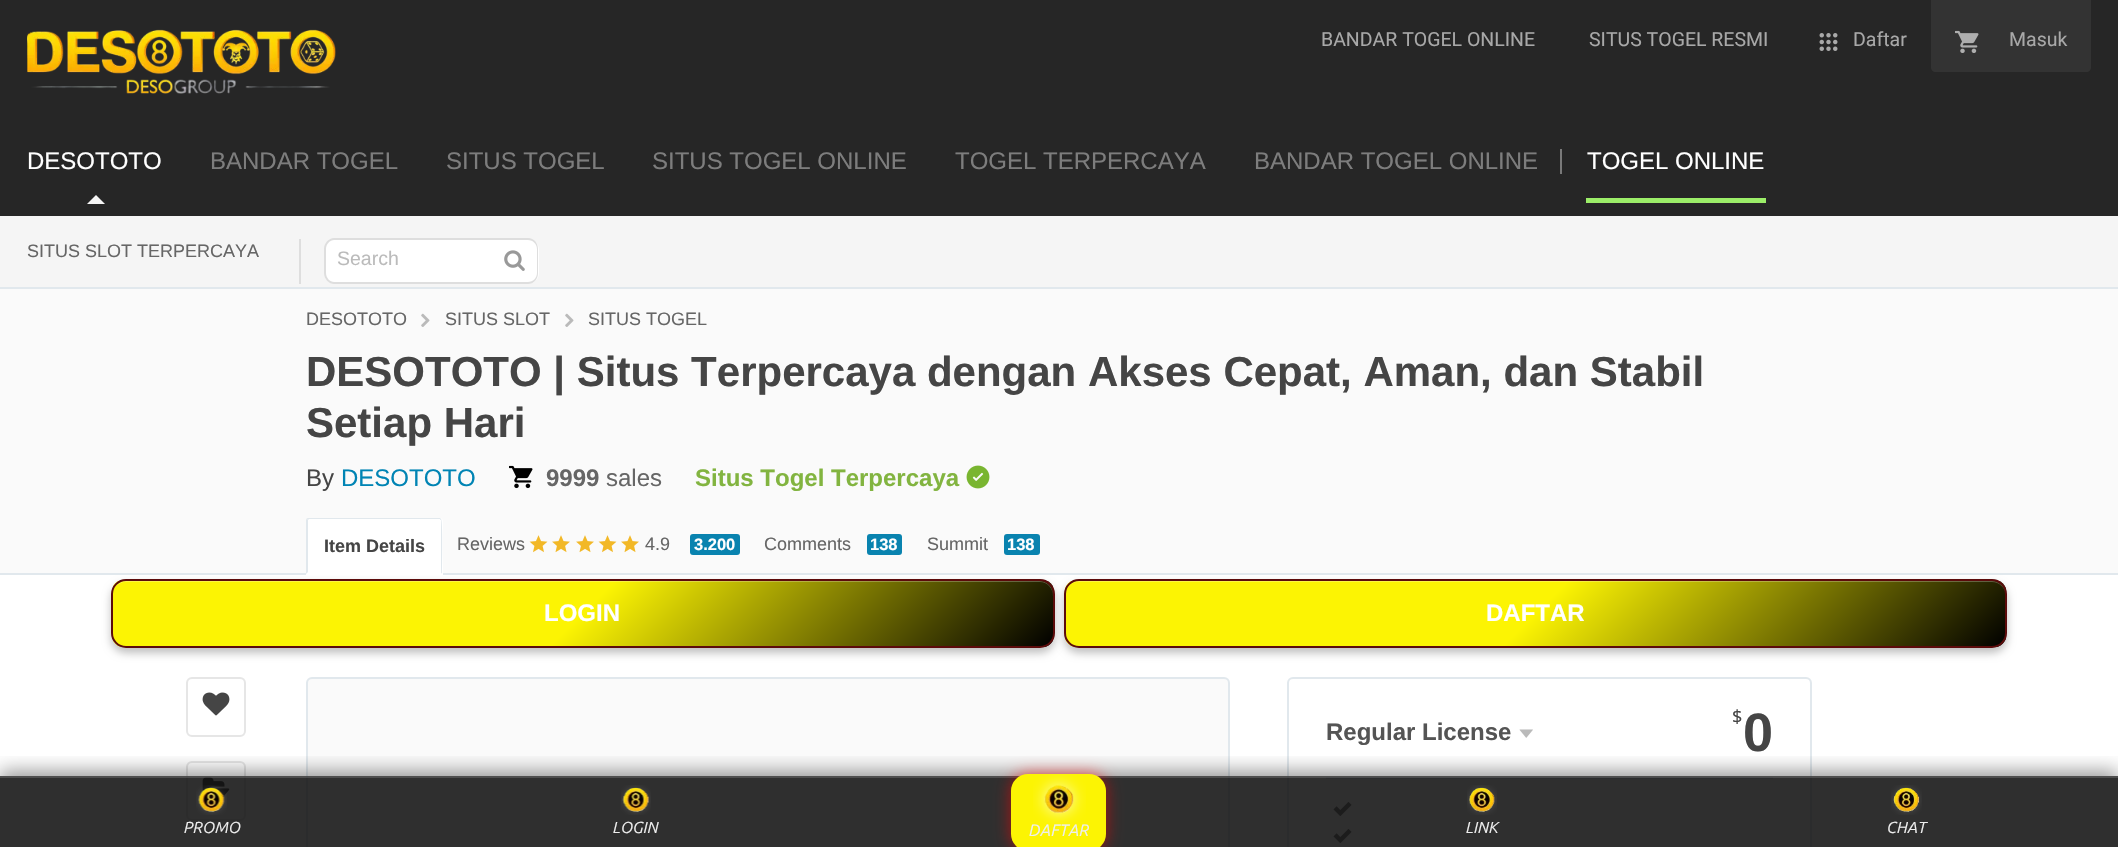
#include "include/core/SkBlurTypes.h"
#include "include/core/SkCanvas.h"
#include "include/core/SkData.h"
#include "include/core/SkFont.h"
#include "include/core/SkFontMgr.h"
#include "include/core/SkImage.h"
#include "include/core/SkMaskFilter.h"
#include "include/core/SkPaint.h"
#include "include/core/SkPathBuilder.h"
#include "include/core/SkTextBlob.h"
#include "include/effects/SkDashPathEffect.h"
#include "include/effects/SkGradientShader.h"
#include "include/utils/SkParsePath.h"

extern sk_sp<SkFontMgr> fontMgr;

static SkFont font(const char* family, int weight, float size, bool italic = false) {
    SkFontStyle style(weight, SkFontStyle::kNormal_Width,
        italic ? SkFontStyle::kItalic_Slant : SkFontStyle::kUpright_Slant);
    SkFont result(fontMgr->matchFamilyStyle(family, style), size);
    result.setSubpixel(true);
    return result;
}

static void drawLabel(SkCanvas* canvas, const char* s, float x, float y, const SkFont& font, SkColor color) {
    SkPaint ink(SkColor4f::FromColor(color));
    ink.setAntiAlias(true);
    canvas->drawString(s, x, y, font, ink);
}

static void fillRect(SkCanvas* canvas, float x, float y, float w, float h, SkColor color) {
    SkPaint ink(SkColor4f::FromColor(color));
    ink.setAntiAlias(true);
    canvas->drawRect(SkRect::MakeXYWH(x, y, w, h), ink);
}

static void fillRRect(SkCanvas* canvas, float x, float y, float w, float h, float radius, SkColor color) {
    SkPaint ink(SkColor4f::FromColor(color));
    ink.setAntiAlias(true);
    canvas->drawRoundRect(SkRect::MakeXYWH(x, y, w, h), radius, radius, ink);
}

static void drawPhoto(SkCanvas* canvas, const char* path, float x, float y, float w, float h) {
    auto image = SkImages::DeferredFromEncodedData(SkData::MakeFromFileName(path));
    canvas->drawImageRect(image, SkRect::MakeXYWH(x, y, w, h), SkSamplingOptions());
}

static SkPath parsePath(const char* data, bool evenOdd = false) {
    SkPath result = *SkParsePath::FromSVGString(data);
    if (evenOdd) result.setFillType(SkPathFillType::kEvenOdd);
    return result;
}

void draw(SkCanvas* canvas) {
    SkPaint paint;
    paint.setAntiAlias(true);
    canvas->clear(0xFFFFFFFF);
    fillRect(canvas, 0, 0, 2118, 216, 0xFF262626);
    drawPhoto(canvas, "assets/img1.png", 27, 29, 309, 65);
    SkFont font1 = font("Roboto", 400, 19.5f);
    drawLabel(canvas, "BANDAR TOGEL ONLINE", 1321, 46, font1, 0xFFA8A8A8);
    drawLabel(canvas, "SITUS TOGEL RESMI", 1589, 46, font1, 0xFFA8A8A8);
    drawPhoto(canvas, "assets/img2.png", 1819, 33, 19, 18);
    drawLabel(canvas, "Daftar", 1853, 46, font1, 0xFFA8A8A8);
    paint.setColor(0xFF333333);
    canvas->drawPath(parsePath("M1931 0H1991V72H1936C1933 72 1931 70 1931 67Z"), paint);
    drawPhoto(canvas, "assets/img3.png", 1955, 30, 24, 23);
    canvas->drawPath(parsePath("M1991 0H2091V67C2091 70 2089 72 2086 72H1991Z"), paint);
    drawLabel(canvas, "Masuk", 2009, 46, font1, 0xFFA8A8A8);
    SkFont font2 = font("Liberation Sans", 400, 24);
    drawLabel(canvas, "DESOTOTO", 27, 169, font2, 0xFFFFFFFF);
    paint.setColor(0xFFF5F5F5);
    canvas->drawPath(parsePath("M105 204H87L96 195Z"), paint);
    drawLabel(canvas, "BANDAR TOGEL", 210, 169, font2, 0xFF7D7D7D);
    drawLabel(canvas, "SITUS TOGEL", 446, 169, font2, 0xFF7D7D7D);
    drawLabel(canvas, "SITUS TOGEL ONLINE", 652, 169, font2, 0xFF7D7D7D);
    drawLabel(canvas, "TOGEL TERPERCAYA", 955, 169, font2, 0xFF7D7D7D);
    drawLabel(canvas, "BANDAR TOGEL ONLINE", 1254, 169, font2, 0xFF7D7D7D);
    fillRect(canvas, 1560, 149, 2, 25, 0xFF797979);
    drawLabel(canvas, "TOGEL ONLINE", 1587, 169, font2, 0xFFFFFFFF);
    fillRect(canvas, 1586, 198, 180, 5, 0xFF9CEE69);
    fillRect(canvas, 0, 216, 2118, 71, 0xFFF5F5F5);
    fillRect(canvas, 0, 287, 2118, 2, 0xFFE1E8ED);
    SkFont font3 = font("Liberation Sans", 400, 18);
    drawLabel(canvas, "SITUS SLOT TERPERCAYA", 27, 257, font3, 0xFF666666);
    fillRect(canvas, 299, 239, 2, 45, 0xFFDEDEDE);
    paint.setColor(0xFFFFFFFF);
    canvas->drawPath(parsePath("M335 239H494V284H335C329 284 324 279 324 273V250C324 244 329 239 335 239Z"), paint);
    paint.setColor(0xFFDEDEDE);
    canvas->drawPath(parsePath("M334 238H494V284H334C329 284 324 279 324 273V249C324 243 329 238 334 238ZM334 240H494V282H334C330 282 326 278 326 273V249C326 244 330 240 334 240Z", true), paint);
    SkFont font4 = font("Liberation Sans", 400, 19.5f);
    drawLabel(canvas, "Search", 337, 265, font4, 0xFFBBBBBB);
    paint.setColor(0xFFFFFFFF);
    canvas->drawPath(parsePath("M494 239H528C534 239 539 244 539 250V273C539 279 534 284 528 284H494Z"), paint);
    paint.setColor(0xFFDEDEDE);
    canvas->drawPath(parsePath("M494 238H528C534 238 538 243 538 249V273C538 279 534 284 528 284H494ZM494 240H528C533 240 537 244 537 249V273C537 278 533 282 528 282H494Z", true), paint);
    drawPhoto(canvas, "assets/img4.png", 504, 250, 21, 21);
    paint.setColor(0x40000000);
    paint.setMaskFilter(SkMaskFilter::MakeBlur(kNormal_SkBlurStyle, 4.5f));
    canvas->drawRoundRect(SkRect::MakeXYWH(111, 584, 944, 69), 15, 15, paint);
    paint.setMaskFilter(nullptr);
    canvas->save();
    canvas->clipPath(parsePath("M126 579H1040C1048.5 579 1055 585.5 1055 594V633C1055 641.5 1048.5 648 1040 648H126C117.5 648 111 641.5 111 633V594C111 585.5 117.5 579 126 579Z"), true);
    {
        const SkColor colors[] = {0xFFFCF403, 0xFFFCF403, 0xFF000000};
        const float stops[] = {0, 0.5f, 1};
        const SkPoint ends[] = {{331, 362}, {834, 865}};
        paint.setShader(SkGradientShader::MakeLinear(ends, colors, stops, 3, SkTileMode::kClamp));
        paint.setAlpha(255);
    }
    canvas->drawRect(SkRect::MakeXYWH(113, 581, 940, 66), paint);
    canvas->restore();
    paint.setShader(nullptr);
    paint.setColor(0x40FFFFFF);
    canvas->drawPath(parsePath("M126 582H1040C1047 582 1053 588 1053 596V595C1053 587 1047 581 1039 581H127C122 581 118 583 116 586C119 584 122 582 126 582Z"), paint);
    paint.setStroke(true);
    paint.setStrokeWidth(2);
    paint.setColor(0xFF5C0B0B);
    canvas->drawRoundRect(SkRect::MakeXYWH(112, 580, 942, 67), 14, 14, paint);
    paint.setStroke(false);
    paint.setColor(0x40000000);
    paint.setMaskFilter(SkMaskFilter::MakeBlur(kNormal_SkBlurStyle, 4.5f));
    canvas->drawRoundRect(SkRect::MakeXYWH(1064, 584, 943, 69), 15, 15, paint);
    paint.setMaskFilter(nullptr);
    fillRect(canvas, 0, 289, 2118, 284, 0xFFFAFAFA);
    fillRect(canvas, 0, 573, 2118, 2, 0xFFE1E8ED);
    drawLabel(canvas, "DESOTOTO", 306, 325, font3, 0xFF666666);
    drawPhoto(canvas, "assets/img5.png", 421, 313, 9, 14);
    drawLabel(canvas, "SITUS SLOT", 445, 325, font3, 0xFF666666);
    drawPhoto(canvas, "assets/img5.png", 565, 313, 9, 14);
    drawLabel(canvas, "SITUS TOGEL", 588, 325, font3, 0xFF666666);
    SkFont font5 = font("Liberation Sans", 700, 42);
    drawLabel(canvas, "DESOTOTO | Situs Terpercaya dengan Akses Cepat, Aman, dan Stabil", 306, 386, font5, 0xFF454545);
    drawLabel(canvas, "Setiap Hari", 306, 437, font5, 0xFF454545);
    drawLabel(canvas, "By", 306, 486, font2, 0xFF454545);
    drawLabel(canvas, "DESOTOTO", 341, 486, font2, 0xFF0084B4);
    drawPhoto(canvas, "assets/img6.png", 509, 465, 24, 24);
    SkFont font6 = font("Liberation Sans", 700, 24);
    drawLabel(canvas, "9999", 546, 486, font6, 0xFF666666);
    drawLabel(canvas, "sales", 606, 486, font2, 0xFF666666);
    drawLabel(canvas, "Situs Togel Terpercaya", 695, 486, font6, 0xFF82B440);
    drawPhoto(canvas, "assets/img7.png", 966, 465, 24, 24);
    paint.setColor(0xFFFFFFFF);
    canvas->drawPath(parsePath("M309 518H440C441.5 518 443 519.5 443 521V575H306V521C306 519.5 307.5 518 309 518Z"), paint);
    paint.setColor(0xFFE1E8ED);
    canvas->drawPath(parsePath("M309 518H307L308 520L309 519H440V520L441 519L440 518Z"), paint);
    canvas->drawPath(parsePath("M442 574C442 568 443 520 441 519L440 520H441V573Z"), paint);
    paint.setColor(0xFFFFFFFF);
    canvas->drawPath(parsePath("M442 574L441 573H308V572L306 574Z"), paint);
    paint.setColor(0xFFE1E8ED);
    canvas->drawPath(parsePath("M306 520V574L308 572V520L307 518Z"), paint);
    SkFont font7 = font("Liberation Sans", 700, 18);
    drawLabel(canvas, "Item Details", 324, 552, font7, 0xFF454545);
    drawLabel(canvas, "Reviews", 457, 550, font3, 0xFF666666);
    drawPhoto(canvas, "assets/img8.png", 529, 535, 19, 18);
    drawPhoto(canvas, "assets/img9.png", 552, 535, 18, 18);
    drawPhoto(canvas, "assets/img9.png", 576, 535, 18, 18);
    drawPhoto(canvas, "assets/img8.png", 598, 535, 19, 18);
    drawPhoto(canvas, "assets/img9.png", 621, 535, 18, 18);
    drawLabel(canvas, "4.9", 645, 550, font3, 0xFF666666);
    fillRRect(canvas, 690, 534, 50, 21, 3, 0xFF0983AF);
    SkFont font8 = font("Liberation Sans", 700, 16.5f);
    drawLabel(canvas, "3.200", 694, 550, font8, 0xFFFFFFFF);
    drawLabel(canvas, "Comments", 764, 550, font3, 0xFF666666);
    fillRRect(canvas, 867, 534, 35, 21, 3, 0xFF0983AF);
    drawLabel(canvas, "138", 870, 550, font8, 0xFFFFFFFF);
    drawLabel(canvas, "Summit", 927, 550, font3, 0xFF666666);
    fillRRect(canvas, 1004, 534, 36, 21, 3, 0xFF0983AF);
    drawLabel(canvas, "138", 1007, 550, font8, 0xFFFFFFFF);
    drawLabel(canvas, "LOGIN", 544, 621, font6, 0xFFFFFFFF);
    canvas->save();
    canvas->clipPath(parsePath("M1079 579H1992C2000.5 579 2007 585.5 2007 594V633C2007 641.5 2000.5 648 1992 648H1079C1070.5 648 1064 641.5 1064 633V594C1064 585.5 1070.5 579 1079 579Z"), true);
    {
        const SkColor colors[] = {0xFFFCF403, 0xFFFCF403, 0xFF000000};
        const float stops[] = {0, 0.5f, 1};
        const SkPoint ends[] = {{1284, 362}, {1787, 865}};
        paint.setShader(SkGradientShader::MakeLinear(ends, colors, stops, 3, SkTileMode::kClamp));
        paint.setAlpha(255);
    }
    canvas->drawRect(SkRect::MakeXYWH(1065, 581, 941, 66), paint);
    canvas->restore();
    paint.setShader(nullptr);
    paint.setColor(0x40FFFFFF);
    canvas->drawPath(parsePath("M1078 582H1992C1999 582 2006 588 2006 596C2006 588 2000 581 1992 581H1079C1071 581 1065 588 1065 596C1065 588 1071 582 1078 582Z"), paint);
    paint.setStroke(true);
    paint.setColor(0xFF5C0B0B);
    canvas->drawRoundRect(SkRect::MakeXYWH(1065, 580, 941, 67), 14, 14, paint);
    drawLabel(canvas, "DAFTAR", 1486, 621, font6, 0xFFFFFFFF);
    paint.setColor(0xFFE6E6E6);
    canvas->drawRoundRect(SkRect::MakeXYWH(187, 678, 58, 58), 5, 5, paint);
    drawPhoto(canvas, "assets/img10.png", 202, 692, 28, 24);
    canvas->drawRoundRect(SkRect::MakeXYWH(187, 762, 58, 58), 5, 5, paint);
    drawPhoto(canvas, "assets/img11.png", 202, 777, 28, 20);
    paint.setStroke(false);
    paint.setColor(0xFFFAFAFA);
    canvas->drawRoundRect(SkRect::MakeXYWH(307, 678, 922, 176), 5, 5, paint);
    paint.setStroke(true);
    paint.setColor(0xFFE1E8ED);
    canvas->drawRoundRect(SkRect::MakeXYWH(307, 678, 922, 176), 5, 5, paint);
    canvas->drawRoundRect(SkRect::MakeXYWH(1288, 678, 523, 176), 5, 5, paint);
    drawLabel(canvas, "Regular License", 1326, 740, font6, 0xFF545454);
    drawPhoto(canvas, "assets/img12.png", 1519, 729, 14, 9);
    SkFont font9 = font("Noto Sans", 400, 18);
    drawLabel(canvas, "$", 1732, 723, font9, 0xFF454545);
    SkFont font10 = font("Liberation Sans", 700, 54);
    drawLabel(canvas, "0", 1743, 751, font10, 0xFF454545);
    fillRect(canvas, 1326, 777, 447, 2, 0xFFE1E8ED);
    drawPhoto(canvas, "assets/img13.png", 1333, 802, 19, 14);
    drawPhoto(canvas, "assets/img13.png", 1333, 829, 19, 14);
    canvas->save();
    canvas->clipRect(SkRect::MakeXYWH(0, 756, 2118, 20));
    paint.setStroke(false);
    paint.setColor(0x66000000);
    paint.setMaskFilter(SkMaskFilter::MakeBlur(kNormal_SkBlurStyle, 9));
    canvas->drawRect(SkRect::MakeXYWH(0, 771, 2118, 72), paint);
    paint.setMaskFilter(nullptr);
    canvas->restore();
    fillRect(canvas, 0, 776, 2118, 71, 0xD90A0A0A);
    fillRect(canvas, 0, 776, 2118, 2, 0x26FFFFFF);
    drawPhoto(canvas, "assets/img14.png", 196, 785, 31, 30);
    SkFont font11 = font("Ubuntu", 400, 16, true);
    drawLabel(canvas, "PROMO", 184, 833, font11, 0xFFEEEEEE);
    drawPhoto(canvas, "assets/img15.png", 621, 785, 30, 30);
    drawLabel(canvas, "LOGIN", 613, 833, font11, 0xFFEEEEEE);
    paint.setColor(0x99FF0000);
    paint.setMaskFilter(SkMaskFilter::MakeBlur(kNormal_SkBlurStyle, 8));
    canvas->drawRoundRect(SkRect::MakeXYWH(1011, 774, 95, 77), 17, 17, paint);
    paint.setMaskFilter(nullptr);
    fillRRect(canvas, 1011, 774, 95, 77, 17, 0xFFFCF403);
    SkFont font12 = font("Ubuntu", 400, 16.5f, true);
    drawLabel(canvas, "DAFTAR", 1029, 836, font12, 0xFFEEEEEE);
    drawPhoto(canvas, "assets/img16.png", 1033, 774, 53, 51);
    drawPhoto(canvas, "assets/img17.png", 1467, 785, 30, 30);
    drawLabel(canvas, "LINK", 1466, 833, font11, 0xFFEEEEEE);
    drawPhoto(canvas, "assets/img18.png", 1891, 785, 31, 30);
    drawLabel(canvas, "CHAT", 1887, 833, font11, 0xFFEEEEEE);
}
